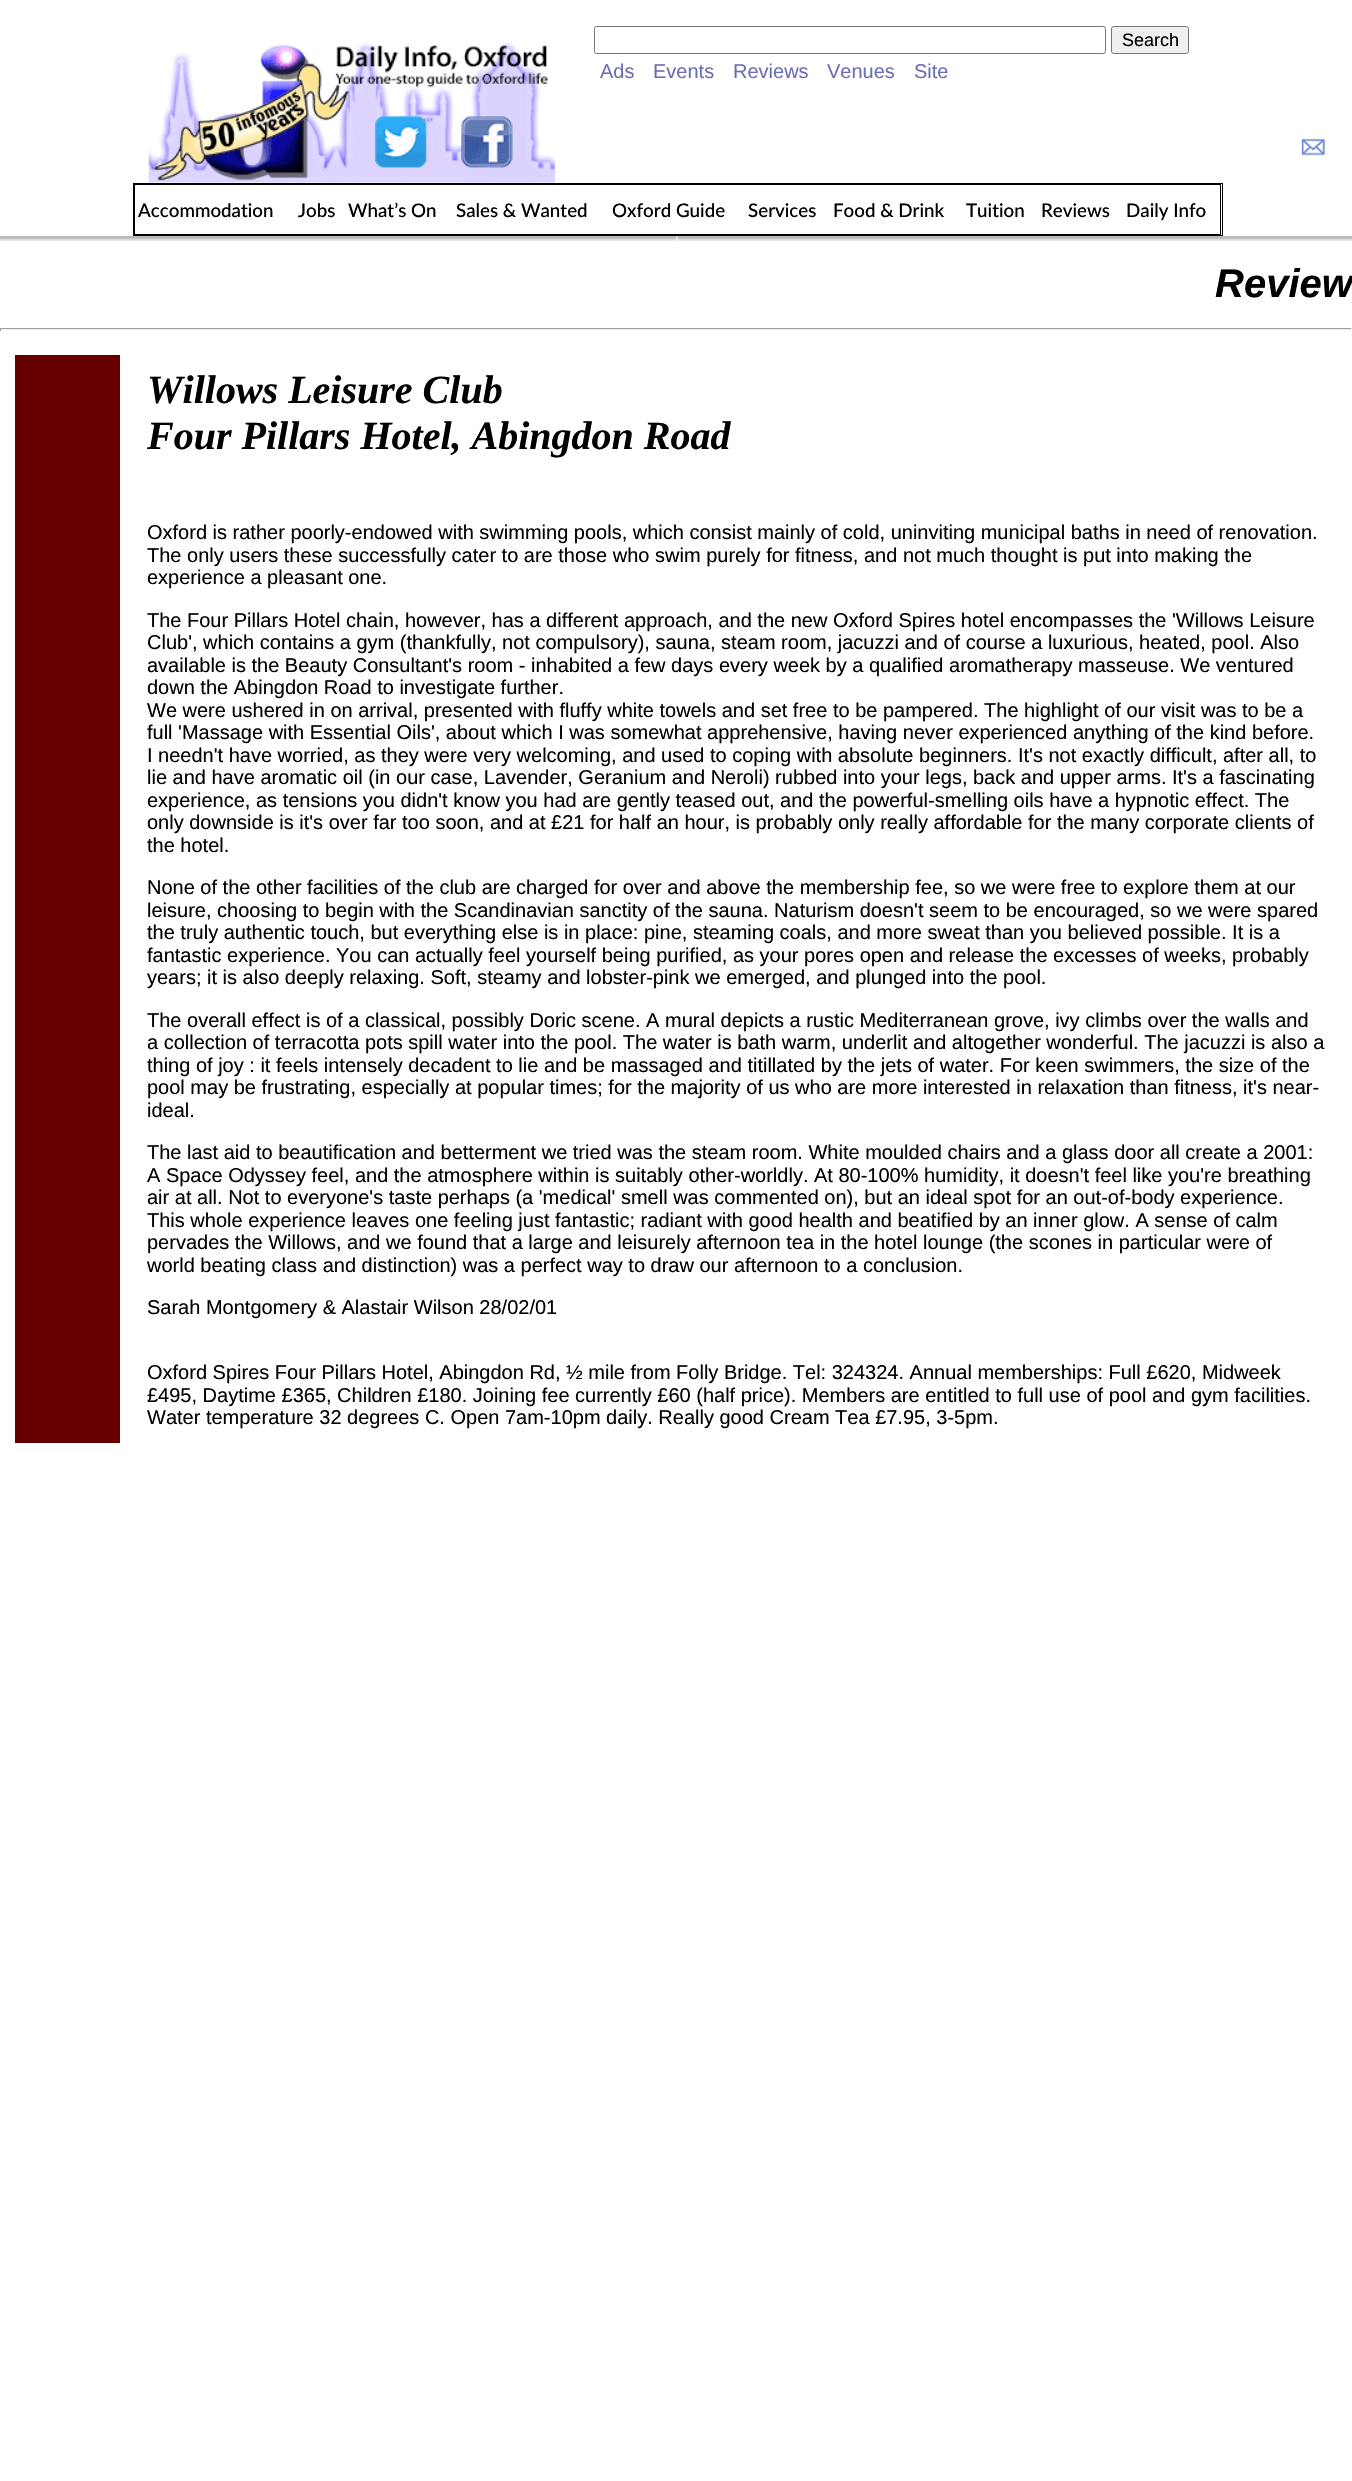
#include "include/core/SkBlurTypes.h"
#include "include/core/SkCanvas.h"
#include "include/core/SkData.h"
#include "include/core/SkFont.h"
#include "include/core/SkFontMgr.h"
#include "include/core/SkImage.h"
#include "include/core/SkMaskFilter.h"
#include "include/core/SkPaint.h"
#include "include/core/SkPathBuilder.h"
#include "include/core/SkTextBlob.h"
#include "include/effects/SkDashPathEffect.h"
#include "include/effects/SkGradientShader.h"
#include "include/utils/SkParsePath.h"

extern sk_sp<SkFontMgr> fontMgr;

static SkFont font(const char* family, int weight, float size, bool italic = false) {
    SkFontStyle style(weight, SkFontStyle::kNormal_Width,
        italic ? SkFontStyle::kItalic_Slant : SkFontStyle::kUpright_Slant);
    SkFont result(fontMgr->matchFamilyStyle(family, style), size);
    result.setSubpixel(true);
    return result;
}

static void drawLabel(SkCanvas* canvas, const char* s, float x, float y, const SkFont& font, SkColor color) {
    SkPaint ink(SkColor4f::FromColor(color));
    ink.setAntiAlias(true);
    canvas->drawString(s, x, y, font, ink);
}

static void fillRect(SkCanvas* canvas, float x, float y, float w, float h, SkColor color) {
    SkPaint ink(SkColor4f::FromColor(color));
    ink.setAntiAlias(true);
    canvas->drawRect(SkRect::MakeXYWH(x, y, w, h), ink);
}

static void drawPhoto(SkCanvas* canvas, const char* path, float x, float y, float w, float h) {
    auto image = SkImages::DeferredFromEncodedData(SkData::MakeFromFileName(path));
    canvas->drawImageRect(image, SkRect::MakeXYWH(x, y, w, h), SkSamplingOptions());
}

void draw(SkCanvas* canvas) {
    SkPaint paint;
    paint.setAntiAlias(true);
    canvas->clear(0xFFFFFFFF);
    drawPhoto(canvas, "assets/img1.png", 148, 42, 407, 141);
    paint.setStroke(true);
    paint.setStrokeWidth(1);
    paint.setColor(0xFF767676);
    canvas->drawRoundRect(SkRect::MakeXYWH(594.5f, 26.5f, 511, 27), 2, 2, paint);
    paint.setStroke(false);
    paint.setColor(0xFFEFEFEF);
    canvas->drawRoundRect(SkRect::MakeXYWH(1111.5f, 26.5f, 77, 27), 2, 2, paint);
    paint.setStroke(true);
    paint.setColor(0xFF767676);
    canvas->drawRoundRect(SkRect::MakeXYWH(1111.5f, 26.5f, 77, 27), 2, 2, paint);
    SkFont font1 = font("Liberation Sans", 400, 18);
    drawLabel(canvas, "Search", 1122, 46, font1, 0xFF000000);
    SkFont font2 = font("Liberation Sans", 400, 20);
    drawLabel(canvas, "Ads", 600, 78, font2, 0xFF6D6DB5);
    drawLabel(canvas, "Events", 653, 78, font2, 0xFF6D6DB5);
    drawLabel(canvas, "Reviews", 733, 78, font2, 0xFF6D6DB5);
    drawLabel(canvas, "Venues", 827, 78, font2, 0xFF6D6DB5);
    drawLabel(canvas, "Site", 914, 78, font2, 0xFF6D6DB5);
    drawPhoto(canvas, "assets/img2.png", 1301, 138, 25, 18);
    paint.setColor(0xFF000000);
    canvas->drawRect(SkRect::MakeXYWH(133.5f, 183.5f, 1089, 52), paint);
    canvas->drawRect(SkRect::MakeXYWH(134.5f, 184.5f, 1086, 50), paint);
    SkFont font3 = font("Lato", 500, 18.75f);
    drawLabel(canvas, "Accommodation", 138, 217, font3, 0xFF000000);
    drawLabel(canvas, "Jobs", 298, 217, font3, 0xFF000000);
    drawLabel(canvas, "What’s On", 348, 217, font3, 0xFF000000);
    drawLabel(canvas, "Sales & Wanted", 456, 217, font3, 0xFF000000);
    drawLabel(canvas, "Oxford Guide", 612, 217, font3, 0xFF000000);
    drawLabel(canvas, "Services", 748, 217, font3, 0xFF000000);
    drawLabel(canvas, "Food & Drink", 833, 217, font3, 0xFF000000);
    drawLabel(canvas, "Tuition", 966, 217, font3, 0xFF000000);
    drawLabel(canvas, "Reviews", 1041, 217, font3, 0xFF000000);
    drawLabel(canvas, "Daily Info", 1126, 217, font3, 0xFF000000);
    drawPhoto(canvas, "assets/img3.png", 0, 236, 1352, 6);
    drawPhoto(canvas, "assets/img4.png", 676, 236, 2, 5);
    SkFont font4 = font("Liberation Sans", 700, 40, true);
    drawLabel(canvas, "Review", 1215, 297, font4, 0xFF000000);
    fillRect(canvas, 0, 328, 1352, 1, 0xFF9F9F9F);
    fillRect(canvas, 1351, 328, 1, 3, 0xFFEEEEEE);
    fillRect(canvas, 0, 329, 1352, 1, 0xFFEEEEEE);
    fillRect(canvas, 0, 328, 1, 3, 0xFF9F9F9F);
    fillRect(canvas, 15, 355, 105, 1088, 0xFF660000);
    SkFont font5 = font("Liberation Serif", 700, 40, true);
    drawLabel(canvas, "Willows Leisure Club", 147, 403, font5, 0xFF000000);
    drawLabel(canvas, "Four Pillars Hotel, Abingdon Road", 147, 449, font5, 0xFF000000);
    drawLabel(canvas, "Oxford is rather poorly-endowed with swimming pools, which consist mainly of cold, uninviting municipal baths in need of renovation.", 147, 539, font2, 0xFF000000);
    drawLabel(canvas, "The only users these successfully cater to are those who swim purely for fitness, and not much thought is put into making the", 147, 562, font2, 0xFF000000);
    drawLabel(canvas, "experience a pleasant one.", 147, 584, font2, 0xFF000000);
    drawLabel(canvas, "The Four Pillars Hotel chain, however, has a different approach, and the new Oxford Spires hotel encompasses the 'Willows Leisure", 147, 627, font2, 0xFF000000);
    drawLabel(canvas, "Club', which contains a gym (thankfully, not compulsory), sauna, steam room, jacuzzi and of course a luxurious, heated, pool. Also", 147, 649, font2, 0xFF000000);
    drawLabel(canvas, "available is the Beauty Consultant's room - inhabited a few days every week by a qualified aromatherapy masseuse. We ventured", 147, 672, font2, 0xFF000000);
    drawLabel(canvas, "down the Abingdon Road to investigate further.", 147, 694, font2, 0xFF000000);
    drawLabel(canvas, "We were ushered in on arrival, presented with fluffy white towels and set free to be pampered. The highlight of our visit was to be a", 147, 717, font2, 0xFF000000);
    drawLabel(canvas, "full 'Massage with Essential Oils', about which I was somewhat apprehensive, having never experienced anything of the kind before.", 147, 739, font2, 0xFF000000);
    drawLabel(canvas, "I needn't have worried, as they were very welcoming, and used to coping with absolute beginners. It's not exactly difficult, after all, to", 147, 762, font2, 0xFF000000);
    drawLabel(canvas, "lie and have aromatic oil (in our case, Lavender, Geranium and Neroli) rubbed into your legs, back and upper arms. It's a fascinating", 147, 784, font2, 0xFF000000);
    drawLabel(canvas, "experience, as tensions you didn't know you had are gently teased out, and the powerful-smelling oils have a hypnotic effect. The", 147, 807, font2, 0xFF000000);
    drawLabel(canvas, "only downside is it's over far too soon, and at £21 for half an hour, is probably only really affordable for the many corporate clients of", 147, 829, font2, 0xFF000000);
    drawLabel(canvas, "the hotel.", 147, 852, font2, 0xFF000000);
    drawLabel(canvas, "None of the other facilities of the club are charged for over and above the membership fee, so we were free to explore them at our", 147, 894, font2, 0xFF000000);
    drawLabel(canvas, "leisure, choosing to begin with the Scandinavian sanctity of the sauna. Naturism doesn't seem to be encouraged, so we were spared", 147, 917, font2, 0xFF000000);
    drawLabel(canvas, "the truly authentic touch, but everything else is in place: pine, steaming coals, and more sweat than you believed possible. It is a", 147, 939, font2, 0xFF000000);
    drawLabel(canvas, "fantastic experience. You can actually feel yourself being purified, as your pores open and release the excesses of weeks, probably", 147, 962, font2, 0xFF000000);
    drawLabel(canvas, "years; it is also deeply relaxing. Soft, steamy and lobster-pink we emerged, and plunged into the pool.", 147, 984, font2, 0xFF000000);
    drawLabel(canvas, "The overall effect is of a classical, possibly Doric scene. A mural depicts a rustic Mediterranean grove, ivy climbs over the walls and", 147, 1027, font2, 0xFF000000);
    drawLabel(canvas, "a collection of terracotta pots spill water into the pool. The water is bath warm, underlit and altogether wonderful. The jacuzzi is also a", 147, 1049, font2, 0xFF000000);
    drawLabel(canvas, "thing of joy : it feels intensely decadent to lie and be massaged and titillated by the jets of water. For keen swimmers, the size of the", 147, 1072, font2, 0xFF000000);
    drawLabel(canvas, "pool may be frustrating, especially at popular times; for the majority of us who are more interested in relaxation than fitness, it's near-", 147, 1094, font2, 0xFF000000);
    drawLabel(canvas, "ideal.", 147, 1117, font2, 0xFF000000);
    drawLabel(canvas, "The last aid to beautification and betterment we tried was the steam room. White moulded chairs and a glass door all create a 2001:", 147, 1159, font2, 0xFF000000);
    drawLabel(canvas, "A Space Odyssey feel, and the atmosphere within is suitably other-worldly. At 80-100% humidity, it doesn't feel like you're breathing", 147, 1182, font2, 0xFF000000);
    drawLabel(canvas, "air at all. Not to everyone's taste perhaps (a 'medical' smell was commented on), but an ideal spot for an out-of-body experience.", 147, 1204, font2, 0xFF000000);
    drawLabel(canvas, "This whole experience leaves one feeling just fantastic; radiant with good health and beatified by an inner glow. A sense of calm", 147, 1227, font2, 0xFF000000);
    drawLabel(canvas, "pervades the Willows, and we found that a large and leisurely afternoon tea in the hotel lounge (the scones in particular were of", 147, 1249, font2, 0xFF000000);
    drawLabel(canvas, "world beating class and distinction) was a perfect way to draw our afternoon to a conclusion.", 147, 1272, font2, 0xFF000000);
    drawLabel(canvas, "Sarah Montgomery & Alastair Wilson 28/02/01", 147, 1314, font2, 0xFF000000);
    drawLabel(canvas, "Oxford Spires Four Pillars Hotel, Abingdon Rd, ½ mile from Folly Bridge. Tel: 324324. Annual memberships: Full £620, Midweek", 147, 1379, font2, 0xFF000000);
    drawLabel(canvas, "£495, Daytime £365, Children £180. Joining fee currently £60 (half price). Members are entitled to full use of pool and gym facilities.", 147, 1402, font2, 0xFF000000);
    drawLabel(canvas, "Water temperature 32 degrees C. Open 7am-10pm daily. Really good Cream Tea £7.95, 3-5pm.", 147, 1424, font2, 0xFF000000);
}
